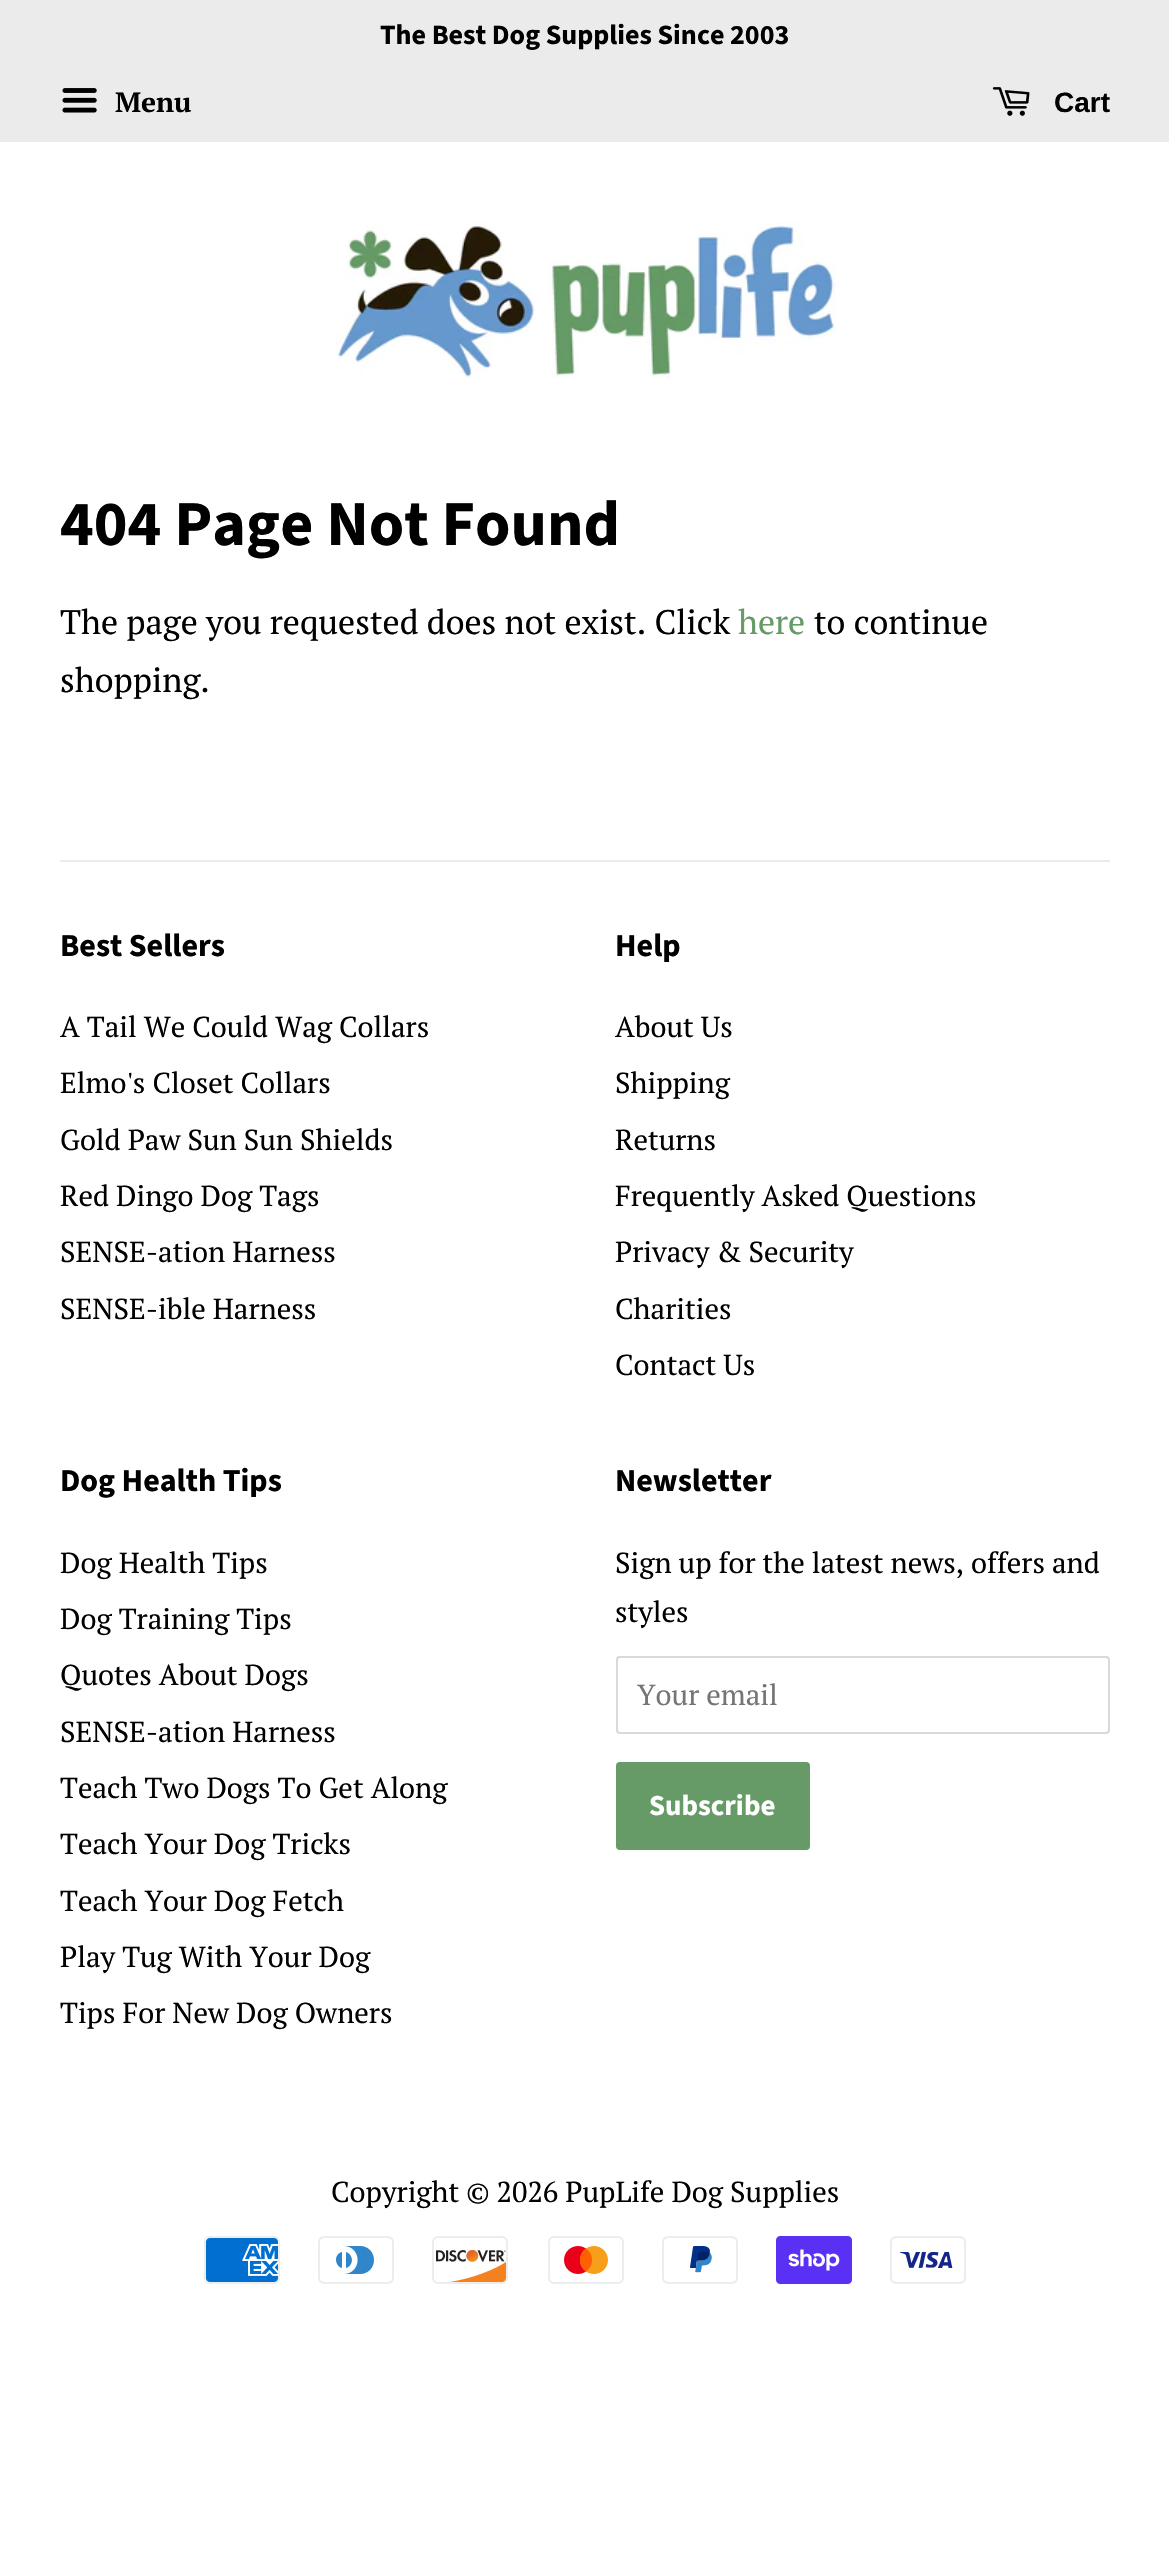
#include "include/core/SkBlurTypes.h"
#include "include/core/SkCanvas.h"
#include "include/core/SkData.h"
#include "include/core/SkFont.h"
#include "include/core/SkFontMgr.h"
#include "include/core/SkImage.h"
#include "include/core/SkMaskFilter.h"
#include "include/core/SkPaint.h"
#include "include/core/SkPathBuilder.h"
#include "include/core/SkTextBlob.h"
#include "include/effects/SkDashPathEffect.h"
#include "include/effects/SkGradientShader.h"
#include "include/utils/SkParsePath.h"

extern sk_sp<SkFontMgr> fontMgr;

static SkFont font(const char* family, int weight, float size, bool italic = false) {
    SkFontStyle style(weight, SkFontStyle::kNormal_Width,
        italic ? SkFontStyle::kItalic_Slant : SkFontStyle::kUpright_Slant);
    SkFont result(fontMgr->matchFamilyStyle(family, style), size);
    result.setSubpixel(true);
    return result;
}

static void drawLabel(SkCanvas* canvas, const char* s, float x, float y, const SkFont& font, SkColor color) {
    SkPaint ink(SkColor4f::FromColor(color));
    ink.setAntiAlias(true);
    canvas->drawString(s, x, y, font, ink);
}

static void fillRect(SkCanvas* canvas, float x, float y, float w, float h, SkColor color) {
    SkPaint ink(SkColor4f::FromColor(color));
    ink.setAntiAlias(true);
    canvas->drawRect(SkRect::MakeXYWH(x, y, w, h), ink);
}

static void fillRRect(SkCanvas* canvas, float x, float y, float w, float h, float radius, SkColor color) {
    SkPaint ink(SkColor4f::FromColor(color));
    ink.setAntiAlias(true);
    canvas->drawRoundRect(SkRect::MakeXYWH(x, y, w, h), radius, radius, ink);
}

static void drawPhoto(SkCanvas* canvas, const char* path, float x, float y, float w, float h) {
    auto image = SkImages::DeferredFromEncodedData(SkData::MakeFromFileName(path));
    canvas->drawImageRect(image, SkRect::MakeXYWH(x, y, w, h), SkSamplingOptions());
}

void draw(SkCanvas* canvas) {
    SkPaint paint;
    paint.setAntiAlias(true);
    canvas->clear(0xFFFFFFFF);
    fillRect(canvas, 0, 0, 1169, 142, 0xFFEBEBEB);
    SkFont font1 = font("Source Sans Pro", 700, 28);
    drawLabel(canvas, "The Best Dog Supplies Since 2003", 380, 44, font1, 0xFF000000);
    drawPhoto(canvas, "assets/img1.png", 62, 88, 35, 25);
    SkFont font2 = font("PT Serif", 700, 28);
    drawLabel(canvas, "Menu", 115, 112, font2, 0xFF000000);
    drawPhoto(canvas, "assets/img2.png", 992, 87, 38, 29);
    SkFont font3 = font("Liberation Sans", 700, 28);
    drawLabel(canvas, "Cart", 1054, 112, font3, 0xFF000000);
    drawPhoto(canvas, "assets/img3.png", 336, 222, 500, 156);
    SkFont font4 = font("Source Sans Pro", 700, 64);
    drawLabel(canvas, "404 Page Not Found", 60, 545, font4, 0xFF000000);
    SkFont font5 = font("PT Serif", 400, 34);
    drawLabel(canvas, "The page you requested does not exist. Click", 60, 634, font5, 0xFF000000);
    drawLabel(canvas, "here", 738, 634, font5, 0xFF669A66);
    drawLabel(canvas, "to continue", 814, 634, font5, 0xFF000000);
    drawLabel(canvas, "shopping.", 60, 692, font5, 0xFF000000);
    fillRect(canvas, 60, 860, 1050, 2, 0xFFEBEBEB);
    SkFont font6 = font("Source Sans Pro", 700, 32);
    drawLabel(canvas, "Best Sellers", 60, 956, font6, 0xFF000000);
    SkFont font7 = font("PT Serif", 400, 28.9f);
    drawLabel(canvas, "A Tail We Could Wag Collars", 60, 1037, font7, 0xFF000000);
    drawLabel(canvas, "Elmo's Closet Collars", 60, 1093, font7, 0xFF000000);
    drawLabel(canvas, "Gold Paw Sun Sun Shields", 60, 1150, font7, 0xFF000000);
    drawLabel(canvas, "Red Dingo Dog Tags", 60, 1206, font7, 0xFF000000);
    drawLabel(canvas, "SENSE-ation Harness", 60, 1262, font7, 0xFF000000);
    drawLabel(canvas, "SENSE-ible Harness", 60, 1319, font7, 0xFF000000);
    drawLabel(canvas, "Help", 615, 956, font6, 0xFF000000);
    drawLabel(canvas, "About Us", 615, 1037, font7, 0xFF000000);
    drawLabel(canvas, "Shipping", 615, 1093, font7, 0xFF000000);
    drawLabel(canvas, "Returns", 615, 1150, font7, 0xFF000000);
    drawLabel(canvas, "Frequently Asked Questions", 615, 1206, font7, 0xFF000000);
    drawLabel(canvas, "Privacy & Security", 615, 1262, font7, 0xFF000000);
    drawLabel(canvas, "Charities", 615, 1319, font7, 0xFF000000);
    drawLabel(canvas, "Contact Us", 615, 1375, font7, 0xFF000000);
    drawLabel(canvas, "Dog Health Tips", 60, 1491, font6, 0xFF000000);
    drawLabel(canvas, "Dog Health Tips", 60, 1573, font7, 0xFF000000);
    drawLabel(canvas, "Dog Training Tips", 60, 1629, font7, 0xFF000000);
    drawLabel(canvas, "Quotes About Dogs", 60, 1685, font7, 0xFF000000);
    drawLabel(canvas, "SENSE-ation Harness", 60, 1742, font7, 0xFF000000);
    drawLabel(canvas, "Teach Two Dogs To Get Along", 60, 1798, font7, 0xFF000000);
    drawLabel(canvas, "Teach Your Dog Tricks", 60, 1854, font7, 0xFF000000);
    drawLabel(canvas, "Teach Your Dog Fetch", 60, 1911, font7, 0xFF000000);
    drawLabel(canvas, "Play Tug With Your Dog", 60, 1967, font7, 0xFF000000);
    drawLabel(canvas, "Tips For New Dog Owners", 60, 2023, font7, 0xFF000000);
    drawLabel(canvas, "Newsletter", 615, 1491, font6, 0xFF000000);
    drawLabel(canvas, "Sign up for the latest news, offers and", 615, 1573, font7, 0xFF000000);
    drawLabel(canvas, "styles", 615, 1622, font7, 0xFF000000);
    paint.setStroke(true);
    paint.setStrokeWidth(2);
    paint.setColor(0xFFD9D9D9);
    canvas->drawRoundRect(SkRect::MakeXYWH(617, 1657, 492, 76), 3, 3, paint);
    drawLabel(canvas, "Your email", 637, 1705, font7, 0xFF757575);
    fillRRect(canvas, 616, 1762, 194, 88, 4, 0xFF669A66);
    SkFont font8 = font("Source Sans Pro", 700, 28.9f);
    drawLabel(canvas, "Subscribe", 649, 1815, font8, 0xFFFFFFFF);
    drawLabel(canvas, "Copyright © 2026 PupLife Dog Supplies", 331, 2202, font7, 0xFF000000);
    drawPhoto(canvas, "assets/img4.png", 204, 2236, 76, 48);
    drawPhoto(canvas, "assets/img5.png", 318, 2236, 76, 48);
    drawPhoto(canvas, "assets/img6.png", 432, 2236, 76, 48);
    drawPhoto(canvas, "assets/img7.png", 548, 2236, 76, 48);
    drawPhoto(canvas, "assets/img8.png", 662, 2236, 76, 48);
    drawPhoto(canvas, "assets/img9.png", 776, 2236, 76, 48);
    drawPhoto(canvas, "assets/img10.png", 890, 2236, 76, 48);
}
